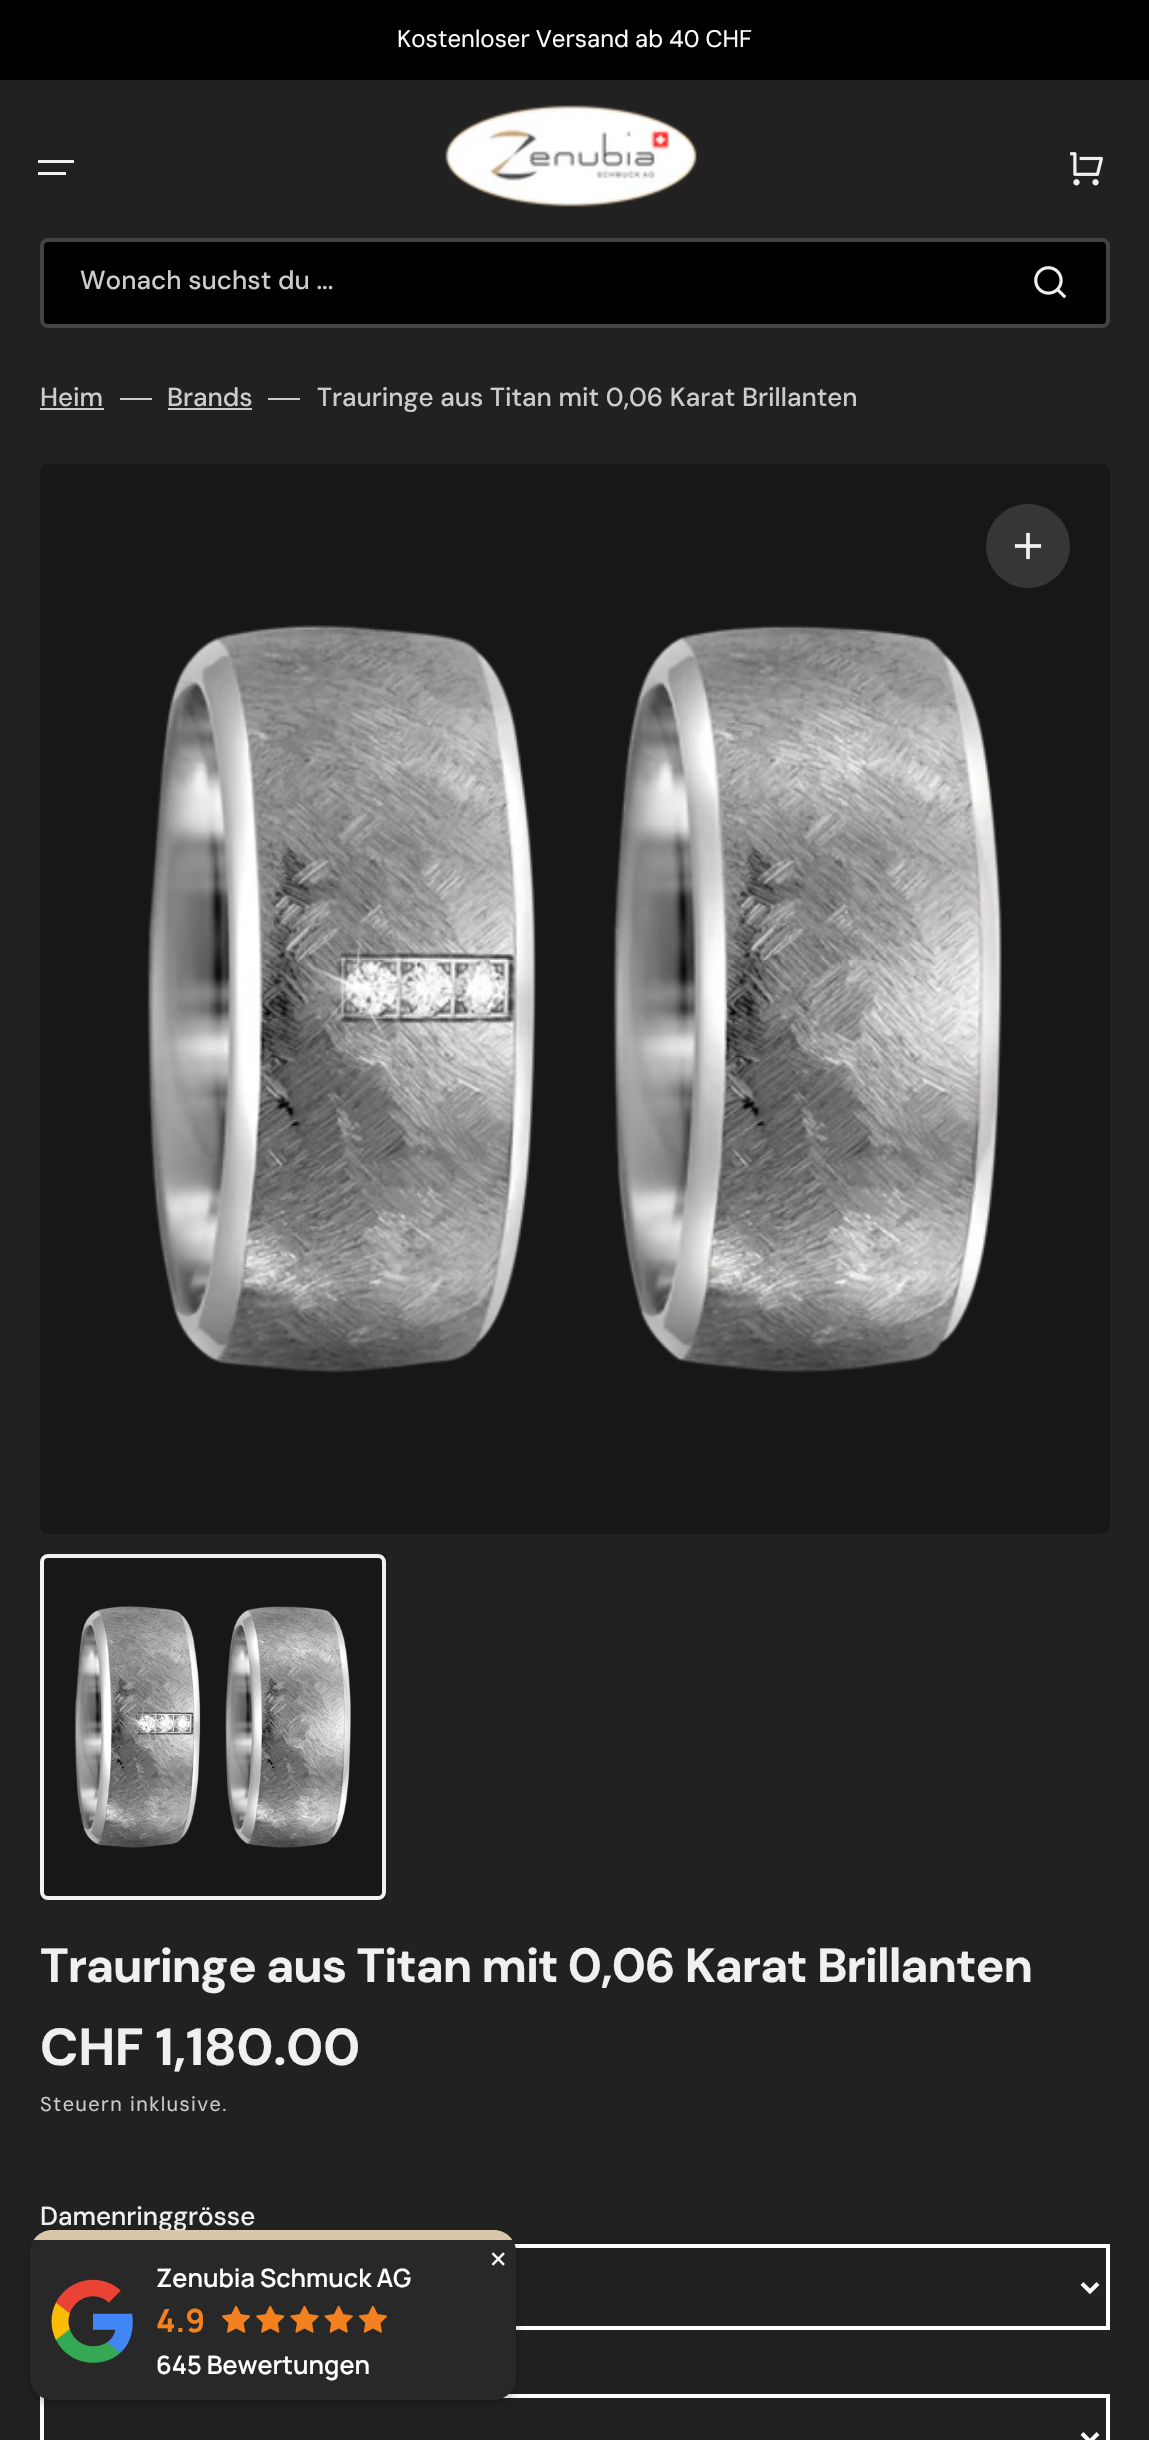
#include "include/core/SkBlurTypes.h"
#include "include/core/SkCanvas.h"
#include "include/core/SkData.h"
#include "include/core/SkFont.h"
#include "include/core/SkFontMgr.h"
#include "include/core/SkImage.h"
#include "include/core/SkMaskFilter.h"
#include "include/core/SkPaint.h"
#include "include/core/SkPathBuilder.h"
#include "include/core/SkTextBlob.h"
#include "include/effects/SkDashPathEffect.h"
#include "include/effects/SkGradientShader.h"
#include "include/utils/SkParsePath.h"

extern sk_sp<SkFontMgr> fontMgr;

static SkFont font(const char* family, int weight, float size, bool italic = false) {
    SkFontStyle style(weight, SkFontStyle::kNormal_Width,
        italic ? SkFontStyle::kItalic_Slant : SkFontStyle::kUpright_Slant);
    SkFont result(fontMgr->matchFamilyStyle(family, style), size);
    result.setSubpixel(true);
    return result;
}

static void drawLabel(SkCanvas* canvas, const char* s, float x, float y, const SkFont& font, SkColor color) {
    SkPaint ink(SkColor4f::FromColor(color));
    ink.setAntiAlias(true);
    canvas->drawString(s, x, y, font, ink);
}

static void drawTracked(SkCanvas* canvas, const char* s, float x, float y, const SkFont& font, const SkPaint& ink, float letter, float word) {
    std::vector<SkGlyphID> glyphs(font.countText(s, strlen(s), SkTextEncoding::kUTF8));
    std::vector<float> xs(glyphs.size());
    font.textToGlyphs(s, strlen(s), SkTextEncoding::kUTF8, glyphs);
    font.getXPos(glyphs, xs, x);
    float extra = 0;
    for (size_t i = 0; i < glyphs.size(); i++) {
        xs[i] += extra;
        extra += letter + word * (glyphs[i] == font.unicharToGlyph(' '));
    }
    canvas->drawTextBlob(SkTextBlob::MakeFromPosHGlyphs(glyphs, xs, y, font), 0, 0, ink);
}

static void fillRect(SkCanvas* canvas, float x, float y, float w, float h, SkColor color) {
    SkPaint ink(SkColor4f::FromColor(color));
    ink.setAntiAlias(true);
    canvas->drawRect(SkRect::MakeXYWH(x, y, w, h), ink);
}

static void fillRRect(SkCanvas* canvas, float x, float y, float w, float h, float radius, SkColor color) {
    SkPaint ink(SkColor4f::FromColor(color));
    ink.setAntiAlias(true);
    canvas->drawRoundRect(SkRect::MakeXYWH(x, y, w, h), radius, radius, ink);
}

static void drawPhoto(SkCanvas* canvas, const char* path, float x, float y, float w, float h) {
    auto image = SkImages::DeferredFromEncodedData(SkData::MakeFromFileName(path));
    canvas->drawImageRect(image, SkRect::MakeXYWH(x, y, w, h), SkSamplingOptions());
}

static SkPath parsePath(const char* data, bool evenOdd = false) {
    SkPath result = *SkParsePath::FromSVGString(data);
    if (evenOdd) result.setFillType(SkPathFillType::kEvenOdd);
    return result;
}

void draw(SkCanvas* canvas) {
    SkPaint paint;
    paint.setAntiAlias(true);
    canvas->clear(0xFF212121);
    fillRect(canvas, 0, 0, 1149, 80, 0xFF000000);
    SkFont font1 = font("DM Sans", 400, 24);
    paint.setColor(0xFFFFFFFF);
    drawTracked(canvas, "Kostenloser Versand ab 40 CHF", 397, 47, font1, paint, 0, -0.5f);
    fillRect(canvas, 38, 160, 36, 3, 0xFFF0F0F0);
    fillRect(canvas, 38, 172, 28, 3, 0xFFF0F0F0);
    drawPhoto(canvas, "assets/img1.png", 445, 105, 252, 102);
    drawPhoto(canvas, "assets/img2.png", 1070, 152, 33, 34);
    paint.setColor(0xFF000000);
    canvas->drawRoundRect(SkRect::MakeXYWH(42, 240, 1066, 86), 6, 6, paint);
    paint.setStroke(true);
    paint.setStrokeWidth(4);
    paint.setColor(0xFF434343);
    canvas->drawRoundRect(SkRect::MakeXYWH(42, 240, 1066, 86), 6, 6, paint);
    SkFont font2 = font("DM Sans", 500, 26);
    drawLabel(canvas, "Wonach suchst du ...", 80, 289, font2, 0xFFCCCCCC);
    drawPhoto(canvas, "assets/img3.png", 1034, 266, 33, 33);
    drawLabel(canvas, "Heim", 40, 406, font2, 0xFFCCCCCC);
    fillRect(canvas, 40, 408, 64, 2, 0xFFCCCCCC);
    fillRect(canvas, 120, 398, 32, 2, 0xFFCCCCCC);
    drawLabel(canvas, "Brands", 167, 406, font2, 0xFFCCCCCC);
    fillRect(canvas, 168, 408, 84, 2, 0xFFCCCCCC);
    fillRect(canvas, 268, 398, 32, 2, 0xFFCCCCCC);
    drawLabel(canvas, "Trauringe aus Titan mit 0,06 Karat Brillanten", 317, 406, font2, 0xFFCCCCCC);
    fillRRect(canvas, 40, 464, 1070, 1070, 8, 0xFF171717);
    drawPhoto(canvas, "assets/img4.png", 147, 625, 855, 748);
    paint.setStroke(false);
    paint.setColor(0xFF212121);
    canvas->drawCircle(1028, 546, 42, paint);
    paint.setColor(0x1AF0F0F0);
    canvas->drawPath(parsePath("M1028 504C1051 504 1070 523 1070 546C1070 569 1051 588 1028 588C1005 588 986 569 986 546C986 523 1005 504 1028 504Z"), paint);
    drawPhoto(canvas, "assets/img5.png", 1014, 532, 28, 28);
    fillRect(canvas, 40, 1554, 346, 346, 0xFF171717);
    drawPhoto(canvas, "assets/img6.png", 74, 1606, 277, 242);
    paint.setStroke(true);
    paint.setColor(0xFFF0F0F0);
    canvas->drawRoundRect(SkRect::MakeXYWH(42, 1556, 342, 342), 6, 6, paint);
    SkFont font3 = font("DM Sans", 700, 48);
    paint.setStroke(false);
    drawTracked(canvas, "Trauringe aus Titan mit 0,06 Karat Brillanten", 40, 1982, font3, paint, -0.95f, 0);
    SkFont font4 = font("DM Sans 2", 700, 52);
    drawLabel(canvas, "CHF 1,180.00", 40, 2065, font4, 0xFFF0F0F0);
    SkFont font5 = font("DM Sans", 400, 20);
    paint.setColor(0xFFCCCCCC);
    drawTracked(canvas, "Steuern inklusive.", 40, 2111, font5, paint, 1.4f, 0);
    drawLabel(canvas, "Damenringgrösse", 40, 2225, font2, 0xFFF0F0F0);
    paint.setStroke(true);
    paint.setColor(0xFFFFFFFF);
    canvas->drawRect(SkRect::MakeXYWH(42, 2246, 1066, 82), paint);
    canvas->drawPath(parsePath("M1082 2283.5L1090 2291.5L1098 2283.5"), paint);
    canvas->drawRect(SkRect::MakeXYWH(42, 2396, 1066, 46), paint);
    canvas->drawPath(parsePath("M1082 2433.5L1090 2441.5L1098 2433.5"), paint);
    paint.setStroke(false);
    paint.setColor(0x42000000);
    paint.setMaskFilter(SkMaskFilter::MakeBlur(kNormal_SkBlurStyle, 4.5f));
    canvas->drawRoundRect(SkRect::MakeXYWH(30, 2234, 486, 170), 22, 22, paint);
    paint.setMaskFilter(nullptr);
    canvas->save();
    canvas->clipPath(parsePath("M52 2230H494C506 2230 516 2240 516 2252V2378C516 2390 506 2400 494 2400H52C40 2400 30 2390 30 2378V2252C30 2240 40 2230 52 2230Z"), true);
    fillRect(canvas, 33, 2230, 480, 10, 0xFFDBC6A9);
    paint.setColor(0xFF282828);
    canvas->drawPath(parsePath("M30 2240H516V2378C516 2390 506 2400 494 2400H52C40 2400 30 2390 30 2378Z"), paint);
    canvas->restore();
    SkFont font6 = font("DejaVu Sans", 400, 22);
    drawLabel(canvas, "✕", 489, 2267, font6, 0xFFFFFFFF);
    drawPhoto(canvas, "assets/img7.png", 51, 2279, 82, 84);
    SkFont font7 = font("Manrope", 600, 25.25f);
    drawLabel(canvas, "Zenubia Schmuck AG", 156, 2287, font7, 0xFFFFFFFF);
    SkFont font8 = font("Manrope", 700, 32);
    drawLabel(canvas, "4.9", 156, 2332, font8, 0xFFF48120);
    drawPhoto(canvas, "assets/img8.png", 221, 2306, 29, 27);
    drawPhoto(canvas, "assets/img9.png", 256, 2306, 28, 27);
    drawPhoto(canvas, "assets/img10.png", 290, 2306, 29, 27);
    drawPhoto(canvas, "assets/img11.png", 324, 2306, 29, 27);
    drawPhoto(canvas, "assets/img12.png", 358, 2306, 30, 27);
    drawLabel(canvas, "645 Bewertungen", 156, 2374, font7, 0xFFFFFFFF);
}
